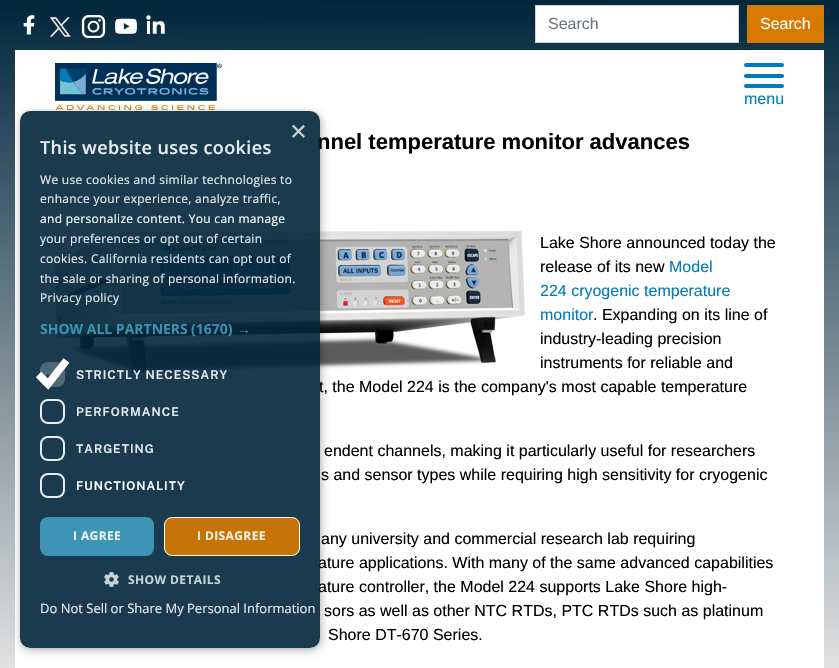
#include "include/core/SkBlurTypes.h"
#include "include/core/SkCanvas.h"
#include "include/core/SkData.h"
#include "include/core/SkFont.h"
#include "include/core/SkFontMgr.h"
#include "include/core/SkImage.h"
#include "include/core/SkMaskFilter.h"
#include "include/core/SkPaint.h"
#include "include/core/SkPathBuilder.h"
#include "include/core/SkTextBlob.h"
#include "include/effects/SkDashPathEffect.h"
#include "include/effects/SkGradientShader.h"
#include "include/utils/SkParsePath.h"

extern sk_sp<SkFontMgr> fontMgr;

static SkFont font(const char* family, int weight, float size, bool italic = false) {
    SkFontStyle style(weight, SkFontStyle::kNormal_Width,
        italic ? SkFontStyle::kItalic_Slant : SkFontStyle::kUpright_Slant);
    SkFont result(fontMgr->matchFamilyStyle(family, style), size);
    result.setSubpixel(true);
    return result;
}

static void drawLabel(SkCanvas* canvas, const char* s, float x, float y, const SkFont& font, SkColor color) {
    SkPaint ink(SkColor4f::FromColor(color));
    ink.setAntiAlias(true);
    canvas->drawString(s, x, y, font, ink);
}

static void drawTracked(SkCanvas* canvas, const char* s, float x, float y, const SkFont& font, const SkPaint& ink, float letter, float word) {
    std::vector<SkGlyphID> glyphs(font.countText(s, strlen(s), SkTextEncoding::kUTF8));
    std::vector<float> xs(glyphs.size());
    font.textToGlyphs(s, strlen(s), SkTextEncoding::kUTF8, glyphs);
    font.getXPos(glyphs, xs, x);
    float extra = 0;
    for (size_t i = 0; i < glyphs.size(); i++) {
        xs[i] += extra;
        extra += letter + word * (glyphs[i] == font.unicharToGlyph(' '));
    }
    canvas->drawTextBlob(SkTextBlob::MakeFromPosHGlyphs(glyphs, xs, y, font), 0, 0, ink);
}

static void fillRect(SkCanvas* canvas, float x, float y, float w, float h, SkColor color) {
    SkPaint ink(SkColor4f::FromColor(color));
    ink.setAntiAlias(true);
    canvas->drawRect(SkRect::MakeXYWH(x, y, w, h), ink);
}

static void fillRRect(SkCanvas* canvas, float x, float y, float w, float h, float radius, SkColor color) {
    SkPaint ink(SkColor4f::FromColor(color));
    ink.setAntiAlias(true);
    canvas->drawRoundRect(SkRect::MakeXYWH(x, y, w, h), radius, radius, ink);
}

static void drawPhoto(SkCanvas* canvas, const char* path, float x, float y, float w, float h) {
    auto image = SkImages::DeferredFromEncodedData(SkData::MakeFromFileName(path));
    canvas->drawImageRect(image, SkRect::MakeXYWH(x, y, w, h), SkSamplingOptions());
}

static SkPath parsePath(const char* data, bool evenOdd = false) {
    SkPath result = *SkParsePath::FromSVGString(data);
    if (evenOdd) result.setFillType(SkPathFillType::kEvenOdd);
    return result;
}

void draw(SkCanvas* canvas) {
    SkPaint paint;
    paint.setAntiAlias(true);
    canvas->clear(0xFFFFFFFF);
    {
        const SkColor colors[] = {0xFF00263C, 0xFFE1E1E1};
        const float stops[] = {0, 1};
        const SkPoint ends[] = {{419, 0}, {420, 668}};
        paint.setShader(SkGradientShader::MakeLinear(ends, colors, stops, 2, SkTileMode::kClamp));
        paint.setAlpha(255);
    }
    canvas->drawRect(SkRect::MakeXYWH(0, 0, 839, 668), paint);
    fillRect(canvas, 15, 50, 809, 618, 0xFFFFFFFF);
    drawPhoto(canvas, "assets/img7.png", 55, 63, 167, 47);
    drawPhoto(canvas, "assets/img8.png", 55, 231, 470, 142);
    canvas->save();
    canvas->clipPath(parsePath("M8 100H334V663H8ZM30 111H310C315.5 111 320 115.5 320 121V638C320 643.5 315.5 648 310 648H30C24.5 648 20 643.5 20 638V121C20 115.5 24.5 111 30 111Z", true), true);
    paint.setShader(nullptr);
    paint.setColor(0x52000000);
    paint.setMaskFilter(SkMaskFilter::MakeBlur(kNormal_SkBlurStyle, 4));
    canvas->drawRoundRect(SkRect::MakeXYWH(21, 113, 300, 537), 10, 10, paint);
    paint.setMaskFilter(nullptr);
    canvas->restore();
    SkFont font1 = font("Liberation Sans", 700, 22);
    drawLabel(canvas, "nnel temperature monitor advances", 317, 149, font1, 0xFF000000);
    SkFont font2 = font("Liberation Sans", 400, 16);
    drawLabel(canvas, "t, the Model 224 is the company's most capable temperature", 319, 392, font2, 0xFF000000);
    drawLabel(canvas, "ature applications. With many of the same advanced capabilities", 318, 568, font2, 0xFF000000);
    drawLabel(canvas, "ature controller, the Model 224 supports Lake Shore high-", 318, 592, font2, 0xFF000000);
    fillRRect(canvas, 20, 111, 300, 537, 10, 0xE600263A);
    SkFont font3 = font("Liberation Sans", 400, 29);
    drawLabel(canvas, "×", 290, 141, font3, 0xFFC9D1D5);
    SkFont font4 = font("Open Sans", 600, 18);
    paint.setColor(0xFFE8EBED);
    drawTracked(canvas, "This website uses cookies", 40, 154, font4, paint, 0.4f, 0);
    SkFont font5 = font("Open Sans", 400, 12);
    drawTracked(canvas, "We use cookies and similar technologies to", 40, 184, font5, paint, 0.3f, 0);
    drawTracked(canvas, "enhance your experience, analyze traffic,", 40, 203, font5, paint, 0.3f, 0);
    paint.setColor(0xFFFFFFFF);
    drawTracked(canvas, "and personalize content. You can manage", 40, 223, font5, paint, 0.3f, 0);
    paint.setColor(0xFFE8EBED);
    drawTracked(canvas, "your preferences or opt out of certain", 40, 243, font5, paint, 0.3f, 0);
    drawTracked(canvas, "cookies. California residents can opt out of", 40, 263, font5, paint, 0.3f, 0);
    drawTracked(canvas, "the sale or sharing of personal information.", 40, 283, font5, paint, 0.3f, 0);
    drawTracked(canvas, "Privacy policy", 40, 302, font5, paint, 0.3f, 0);
    SkFont font6 = font("Open Sans", 700, 14);
    drawLabel(canvas, "SHOW ALL PARTNERS", 40, 334, font6, 0xFF3C92B2);
    drawLabel(canvas, "(1670)", 191, 334, font6, 0xFF3C92B2);
    SkFont font7 = font("Liberation Sans", 700, 14);
    drawLabel(canvas, "→", 237, 334, font7, 0xFF3C92B2);
    fillRRect(canvas, 40, 362, 25, 25, 8, 0x3BFFFFFF);
    paint.setStroke(true);
    paint.setStrokeWidth(2.6f);
    paint.setColor(0xFF1A3C4E);
    canvas->drawPath(parsePath("M47 375L50.5 378.5L58 370.5"), paint);
    paint.setStrokeWidth(7.5f);
    paint.setColor(0xFFFFFFFF);
    canvas->drawPath(parsePath("M38.5 374.5L48 384L66.5 360.5"), paint);
    SkFont font8 = font("Public Sans", 600, 12);
    paint.setStroke(false);
    paint.setColor(0xFFE8EBED);
    drawTracked(canvas, "STRICTLY NECESSARY", 76, 379, font8, paint, 1, 0);
    paint.setStroke(true);
    paint.setStrokeWidth(2);
    paint.setColor(0xE6FFFFFF);
    canvas->drawRoundRect(SkRect::MakeXYWH(41, 400, 23, 23), 7, 7, paint);
    paint.setStroke(false);
    paint.setColor(0xFFE8EBED);
    drawTracked(canvas, "PERFORMANCE", 76, 416, font8, paint, 1, 0);
    paint.setStroke(true);
    paint.setColor(0xE6FFFFFF);
    canvas->drawRoundRect(SkRect::MakeXYWH(41, 437, 23, 23), 7, 7, paint);
    paint.setStroke(false);
    paint.setColor(0xFFE8EBED);
    drawTracked(canvas, "TARGETING", 76, 453, font8, paint, 1, 0);
    paint.setStroke(true);
    paint.setColor(0xE6FFFFFF);
    canvas->drawRoundRect(SkRect::MakeXYWH(41, 474, 23, 23), 7, 7, paint);
    paint.setStroke(false);
    paint.setColor(0xFFFFFFFF);
    drawTracked(canvas, "FUNCTIONALITY", 76, 490, font8, paint, 1, 0);
    fillRRect(canvas, 40, 517, 114, 39, 8, 0xE6419DBF);
    SkFont font9 = font("Open Sans", 700, 12);
    paint.setColor(0xFFECF4F7);
    drawTracked(canvas, "I AGREE", 73, 540, font9, paint, 0.4f, 0);
    paint.setColor(0xE6D87900);
    canvas->drawRoundRect(SkRect::MakeXYWH(164.5f, 517.5f, 135, 38), 7.5f, 7.5f, paint);
    paint.setStroke(true);
    paint.setStrokeWidth(1);
    paint.setColor(0xFFFFFFFF);
    canvas->drawRoundRect(SkRect::MakeXYWH(164.5f, 517.5f, 135, 38), 7.5f, 7.5f, paint);
    paint.setStroke(false);
    paint.setColor(0xFFF9F1E6);
    drawTracked(canvas, "I DISAGREE", 197, 540, font9, paint, 0.4f, 0);
    drawPhoto(canvas, "assets/img1.png", 104, 572, 15, 15);
    paint.setColor(0xFFC9D1D5);
    drawTracked(canvas, "SHOW DETAILS", 128, 584, font9, paint, 0.4f, 0);
    SkFont font10 = font("Open Sans", 400, 13);
    drawLabel(canvas, "Do Not Sell or Share My Personal Information", 40, 613, font10, 0xFFE8EBED);
    drawPhoto(canvas, "assets/img2.png", 23, 15, 12, 20);
    drawPhoto(canvas, "assets/img3.png", 50, 17, 21, 20);
    drawPhoto(canvas, "assets/img4.png", 81, 15, 25, 23);
    drawPhoto(canvas, "assets/img5.png", 115, 18, 22, 16);
    drawPhoto(canvas, "assets/img6.png", 146, 15, 19, 19);
    paint.setColor(0xFFFFFFFF);
    canvas->drawRect(SkRect::MakeXYWH(535.5f, 5.5f, 203, 37), paint);
    paint.setStroke(true);
    paint.setColor(0xFFCED4DA);
    canvas->drawRect(SkRect::MakeXYWH(535.5f, 5.5f, 203, 37), paint);
    drawLabel(canvas, "Search", 548, 29, font2, 0xFF6C757D);
    fillRect(canvas, 747, 5, 77, 38, 0xFFD87900);
    drawLabel(canvas, "Search", 760, 29, font2, 0xFFFFFFFF);
    fillRRect(canvas, 744, 63, 40, 4, 2, 0xFF007CBB);
    fillRRect(canvas, 744, 74, 40, 4, 2, 0xFF007CBB);
    fillRRect(canvas, 744, 84, 40, 4, 2, 0xFF007CBB);
    drawLabel(canvas, "menu", 744, 104, font2, 0xFF007CBB);
    drawLabel(canvas, "Lake Shore announced today the", 540, 248, font2, 0xFF000000);
    drawLabel(canvas, "release of its new", 540, 272, font2, 0xFF000000);
    drawLabel(canvas, "Model", 669, 272, font2, 0xFF007CBB);
    drawLabel(canvas, "224 cryogenic temperature", 540, 296, font2, 0xFF007CBB);
    drawLabel(canvas, "monitor", 540, 320, font2, 0xFF007CBB);
    drawLabel(canvas, ". Expanding on its line of", 593, 320, font2, 0xFF000000);
    drawLabel(canvas, "industry-leading precision", 540, 344, font2, 0xFF000000);
    drawLabel(canvas, "instruments for reliable and", 540, 368, font2, 0xFF000000);
    drawLabel(canvas, "endent channels, making it particularly useful for researchers", 324, 456, font2, 0xFF000000);
    drawLabel(canvas, "s and sensor types while requiring high sensitivity for cryogenic", 321, 480, font2, 0xFF000000);
    drawLabel(canvas, "any university and commercial research lab requiring", 321, 544, font2, 0xFF000000);
    drawLabel(canvas, "sors as well as other NTC RTDs, PTC RTDs such as platinum", 324, 616, font2, 0xFF000000);
    drawLabel(canvas, "Shore DT-670 Series.", 328, 640, font2, 0xFF000000);
}
